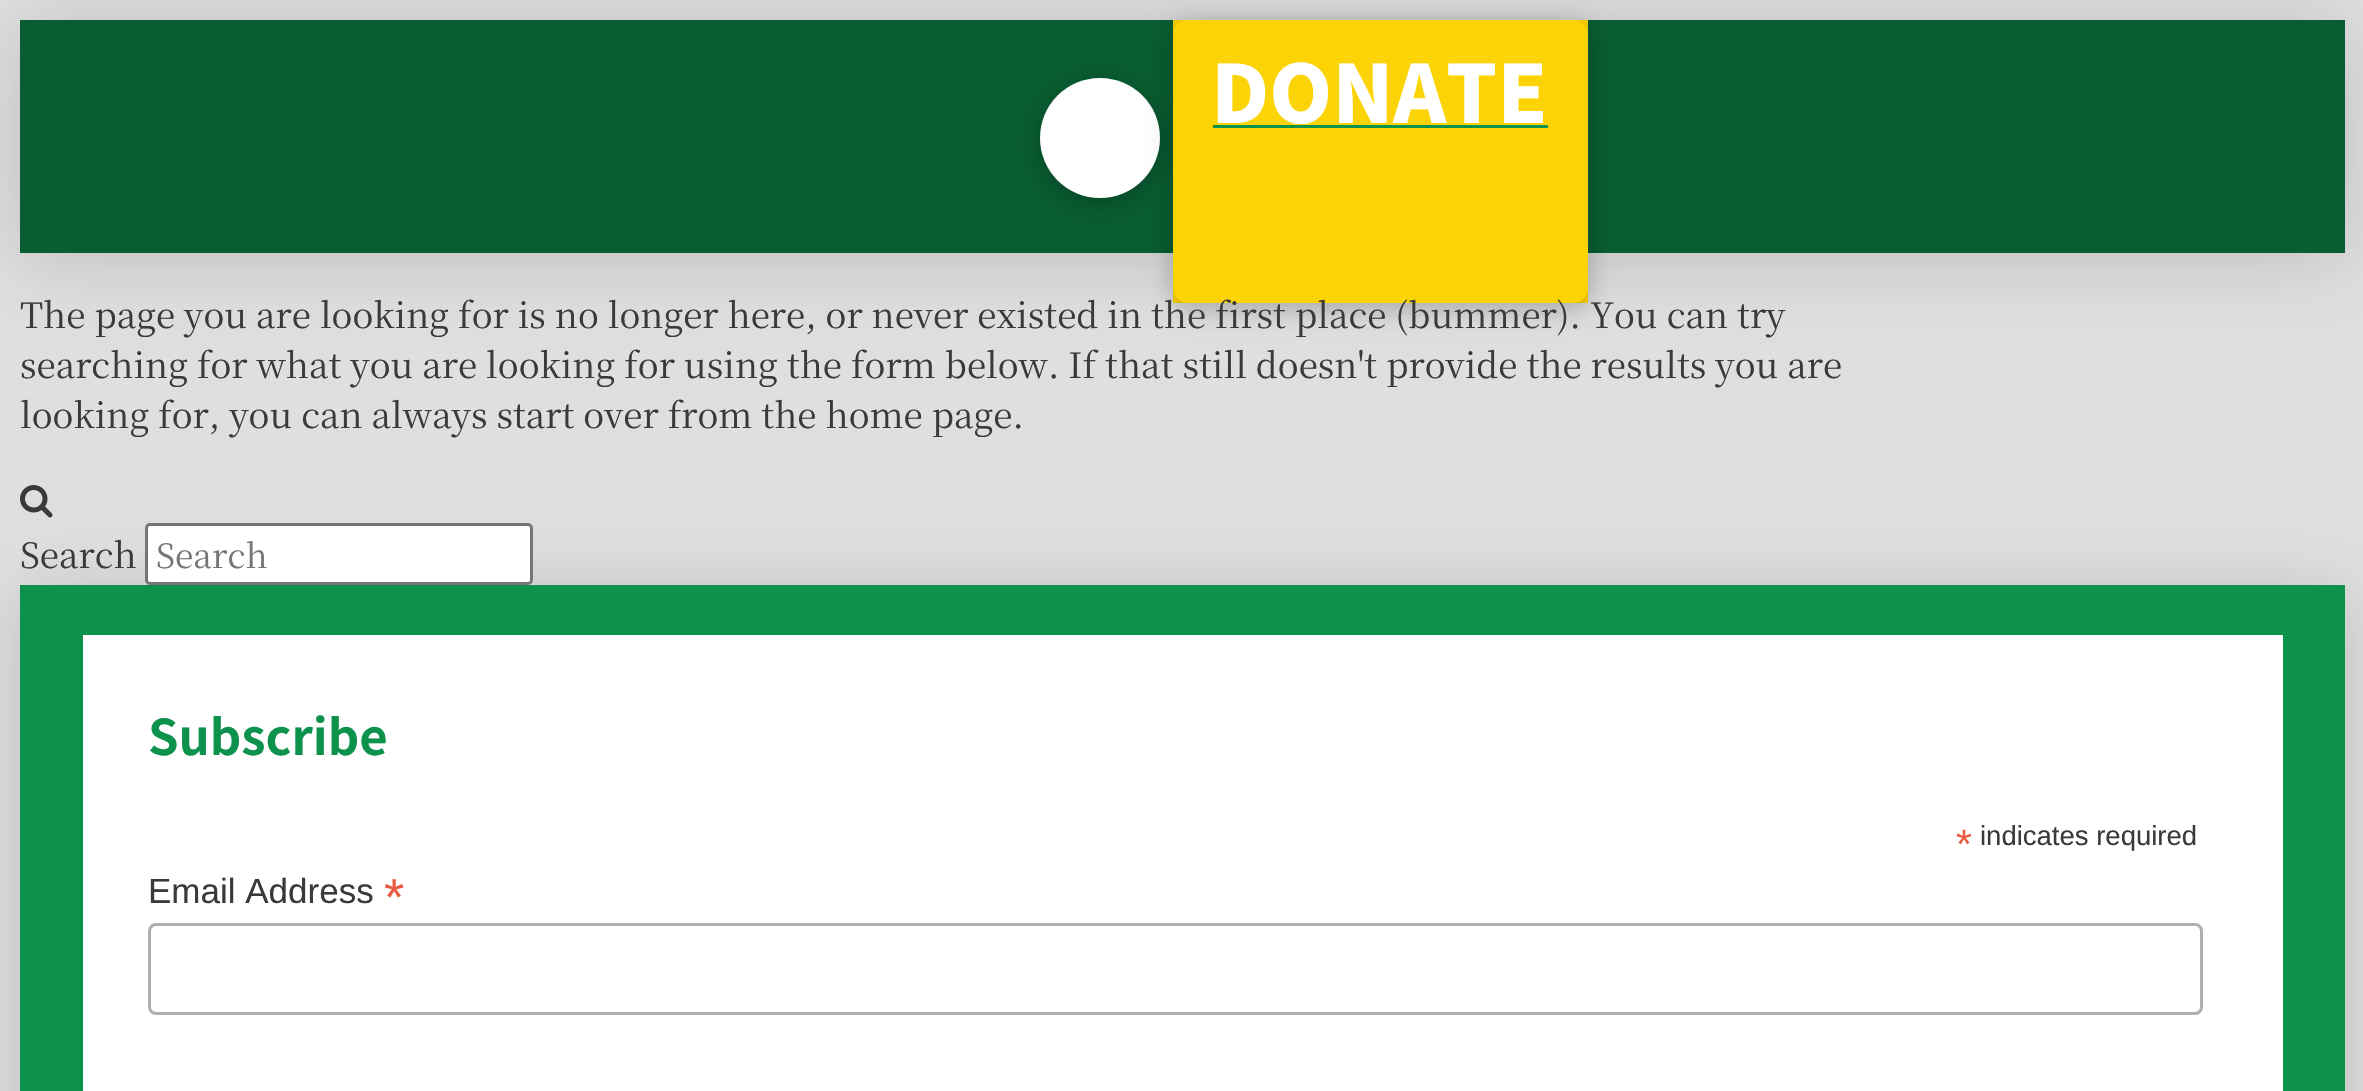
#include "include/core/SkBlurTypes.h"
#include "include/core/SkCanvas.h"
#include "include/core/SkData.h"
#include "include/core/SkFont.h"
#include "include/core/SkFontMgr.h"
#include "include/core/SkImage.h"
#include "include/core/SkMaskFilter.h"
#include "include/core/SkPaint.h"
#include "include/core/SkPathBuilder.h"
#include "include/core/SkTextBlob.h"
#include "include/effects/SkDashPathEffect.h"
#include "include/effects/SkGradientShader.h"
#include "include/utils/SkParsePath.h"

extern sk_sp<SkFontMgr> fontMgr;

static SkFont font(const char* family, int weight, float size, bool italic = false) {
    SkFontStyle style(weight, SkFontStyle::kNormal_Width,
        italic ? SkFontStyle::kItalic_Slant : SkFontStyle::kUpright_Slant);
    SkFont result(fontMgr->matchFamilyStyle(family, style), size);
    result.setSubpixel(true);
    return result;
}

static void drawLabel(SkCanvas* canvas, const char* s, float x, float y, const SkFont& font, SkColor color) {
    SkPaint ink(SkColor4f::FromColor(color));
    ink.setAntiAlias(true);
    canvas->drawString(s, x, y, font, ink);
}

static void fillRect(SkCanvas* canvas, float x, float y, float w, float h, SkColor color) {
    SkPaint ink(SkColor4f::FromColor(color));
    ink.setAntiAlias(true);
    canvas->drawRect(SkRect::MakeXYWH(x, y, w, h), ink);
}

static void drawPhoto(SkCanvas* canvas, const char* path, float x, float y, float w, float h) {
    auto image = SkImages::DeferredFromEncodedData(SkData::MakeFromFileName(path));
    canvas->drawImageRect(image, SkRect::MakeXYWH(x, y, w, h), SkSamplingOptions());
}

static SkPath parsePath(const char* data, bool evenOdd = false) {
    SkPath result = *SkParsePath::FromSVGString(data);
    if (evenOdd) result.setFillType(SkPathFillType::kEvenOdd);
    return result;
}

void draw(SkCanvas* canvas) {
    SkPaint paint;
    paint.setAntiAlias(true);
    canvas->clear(0xFFDFDFDF);
    paint.setColor(0x26000000);
    paint.setMaskFilter(SkMaskFilter::MakeBlur(kNormal_SkBlurStyle, 40));
    canvas->drawRect(SkRect::MakeXYWH(20, 25, 2325, 233), paint);
    paint.setMaskFilter(nullptr);
    fillRect(canvas, 20, 20, 2325, 233, 0xFF095D32);
    paint.setColor(0x40000000);
    paint.setMaskFilter(SkMaskFilter::MakeBlur(kNormal_SkBlurStyle, 13));
    canvas->drawRoundRect(SkRect::MakeXYWH(1040, 83, 120, 120), 60, 60, paint);
    paint.setMaskFilter(nullptr);
    paint.setColor(0xFFFFFFFF);
    canvas->drawCircle(1100, 138, 60, paint);
    fillRect(canvas, 1173, 20, 415, 283, 0xFFFCD405);
    canvas->save();
    canvas->clipPath(parsePath("M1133 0H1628V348H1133ZM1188 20H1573C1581.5 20 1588 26.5 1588 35V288C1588 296.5 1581.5 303 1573 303H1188C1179.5 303 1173 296.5 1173 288V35C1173 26.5 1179.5 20 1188 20Z", true), true);
    paint.setColor(0x40000000);
    paint.setMaskFilter(SkMaskFilter::MakeBlur(kNormal_SkBlurStyle, 13));
    canvas->drawRoundRect(SkRect::MakeXYWH(1173, 25, 415, 283), 15, 15, paint);
    paint.setMaskFilter(nullptr);
    canvas->restore();
    SkFont font1 = font("Noto Sans JP", 900, 80);
    drawLabel(canvas, "DONATE", 1211, 123, font1, 0xFFFFFFFF);
    fillRect(canvas, 1213, 125, 335, 3, 0xFF0D924E);
    SkFont font2 = font("Noto Serif JP", 400, 35);
    drawLabel(canvas, "The page you are looking for is no longer here, or never existed in the first place (bummer). You can try", 20, 328, font2, 0xFF3A3A3A);
    drawLabel(canvas, "searching for what you are looking for using the form below. If that still doesn't provide the results you are", 20, 378, font2, 0xFF3A3A3A);
    drawLabel(canvas, "looking for, you can always start over from the home page.", 20, 428, font2, 0xFF3A3A3A);
    paint.setColor(0x26000000);
    paint.setMaskFilter(SkMaskFilter::MakeBlur(kNormal_SkBlurStyle, 31));
    canvas->drawRect(SkRect::MakeXYWH(20, 593, 2325, 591), paint);
    paint.setMaskFilter(nullptr);
    drawPhoto(canvas, "assets/img1.png", 20, 485, 33, 33);
    drawLabel(canvas, "Search", 20, 568, font2, 0xFF3A3A3A);
    paint.setColor(0xFFFFFFFF);
    canvas->drawRoundRect(SkRect::MakeXYWH(146.5f, 524.5f, 385, 59), 3.5f, 3.5f, paint);
    paint.setStroke(true);
    paint.setStrokeWidth(3);
    paint.setColor(0xFF767676);
    canvas->drawRoundRect(SkRect::MakeXYWH(146.5f, 524.5f, 385, 59), 3.5f, 3.5f, paint);
    SkFont font3 = font("Noto Serif JP", 400, 33.5f);
    drawLabel(canvas, "Search", 156, 568, font3, 0xFF757575);
    fillRect(canvas, 20, 585, 2325, 506, 0xFF0D924E);
    fillRect(canvas, 83, 635, 2200, 456, 0xFFFFFFFF);
    SkFont font4 = font("Noto Sans JP", 700, 49);
    drawLabel(canvas, "Subscribe", 148, 755, font4, 0xFF0D924E);
    SkFont font5 = font("Liberation Sans", 400, 41);
    drawLabel(canvas, "*", 1956, 858, font5, 0xFFE85C41);
    SkFont font6 = font("Liberation Sans", 400, 27.5f);
    drawLabel(canvas, "indicates required", 1980, 845, font6, 0xFF3A3A3A);
    SkFont font7 = font("Liberation Sans", 400, 35);
    drawLabel(canvas, "Email Address", 148, 903, font7, 0xFF3A3A3A);
    SkFont font8 = font("Liberation Sans", 400, 52);
    drawLabel(canvas, "*", 384, 915, font8, 0xFFE85C41);
    paint.setColor(0xFFABB0B2);
    canvas->drawRoundRect(SkRect::MakeXYWH(149.5f, 924.5f, 2052, 89), 6.5f, 6.5f, paint);
}
